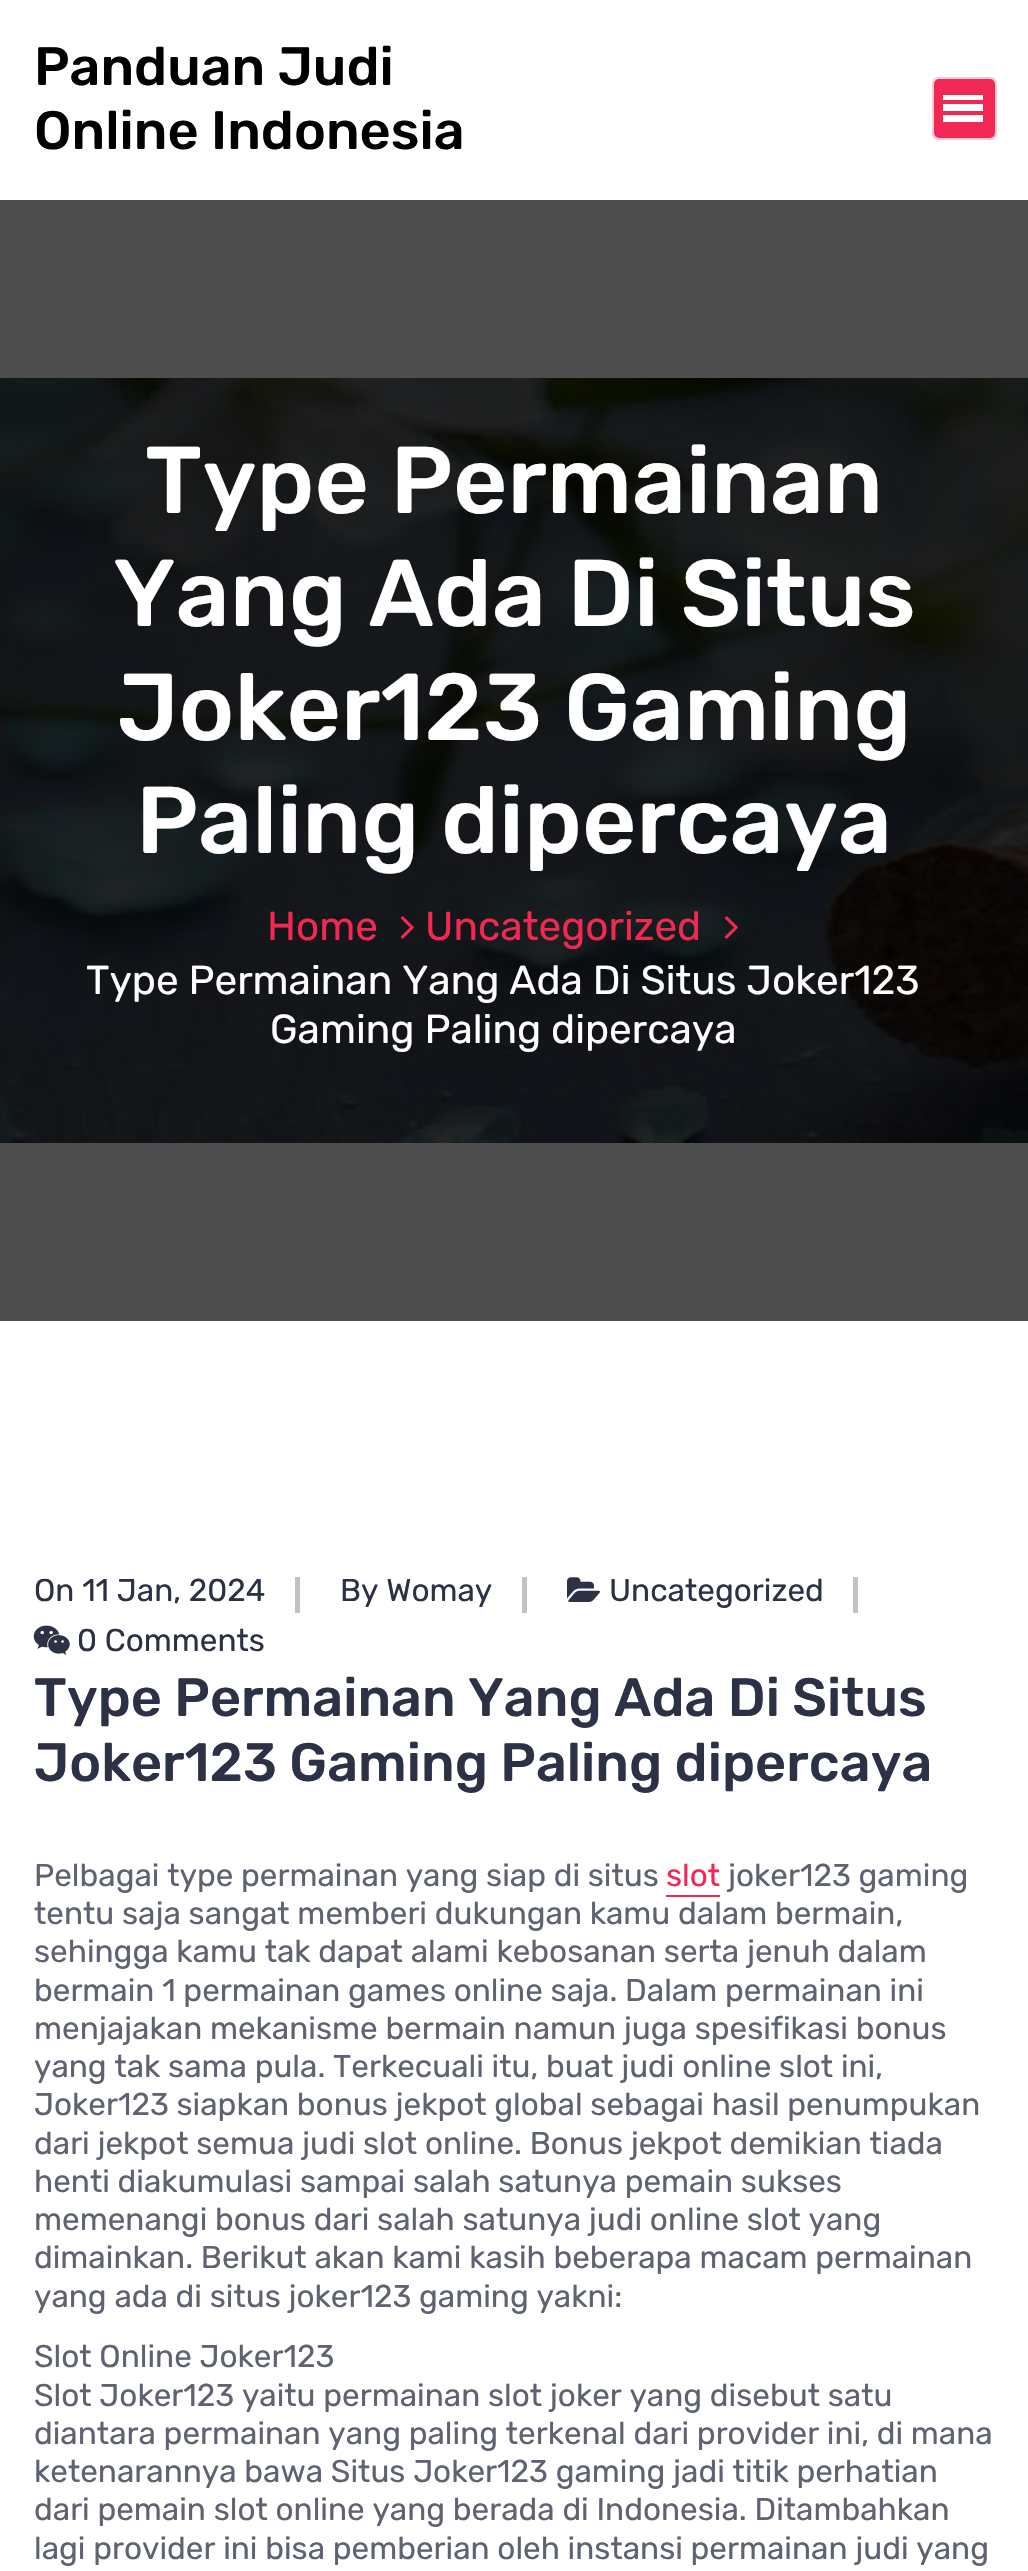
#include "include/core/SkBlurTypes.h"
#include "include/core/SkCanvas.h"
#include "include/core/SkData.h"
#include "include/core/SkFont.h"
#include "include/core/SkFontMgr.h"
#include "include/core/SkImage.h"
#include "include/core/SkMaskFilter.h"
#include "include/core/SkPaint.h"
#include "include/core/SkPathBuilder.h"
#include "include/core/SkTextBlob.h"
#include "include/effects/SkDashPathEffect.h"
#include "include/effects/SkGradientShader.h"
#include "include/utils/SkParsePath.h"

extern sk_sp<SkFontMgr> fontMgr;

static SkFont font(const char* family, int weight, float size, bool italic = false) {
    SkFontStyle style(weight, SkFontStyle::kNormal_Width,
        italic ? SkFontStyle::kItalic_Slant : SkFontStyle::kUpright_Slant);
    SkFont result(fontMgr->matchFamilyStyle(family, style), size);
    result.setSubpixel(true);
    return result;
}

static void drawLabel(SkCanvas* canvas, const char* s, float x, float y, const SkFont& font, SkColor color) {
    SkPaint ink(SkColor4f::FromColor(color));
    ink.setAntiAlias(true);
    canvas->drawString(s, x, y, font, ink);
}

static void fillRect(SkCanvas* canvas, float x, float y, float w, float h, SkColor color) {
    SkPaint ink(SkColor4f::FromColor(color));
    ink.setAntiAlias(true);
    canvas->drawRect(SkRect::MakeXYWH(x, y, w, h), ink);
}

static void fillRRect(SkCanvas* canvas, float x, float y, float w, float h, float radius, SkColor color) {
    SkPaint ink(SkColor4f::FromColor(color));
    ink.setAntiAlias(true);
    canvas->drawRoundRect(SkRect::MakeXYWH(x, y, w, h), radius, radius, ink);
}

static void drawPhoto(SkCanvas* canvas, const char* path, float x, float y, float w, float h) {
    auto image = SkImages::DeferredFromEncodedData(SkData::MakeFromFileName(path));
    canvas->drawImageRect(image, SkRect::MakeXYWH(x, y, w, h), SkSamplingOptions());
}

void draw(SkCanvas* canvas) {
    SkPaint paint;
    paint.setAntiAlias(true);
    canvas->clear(0xFFFFFFFF);
    fillRect(canvas, 0, 200, 1028, 1121, 0xFF4D4D4D);
    SkFont font1 = font("Rubik", 500, 54);
    drawLabel(canvas, "Panduan Judi", 34, 85, font1, 0xFF000000);
    drawLabel(canvas, "Online Indonesia", 34, 149, font1, 0xFF000000);
    paint.setColor(0xFFF22853);
    canvas->drawRoundRect(SkRect::MakeXYWH(933, 78, 63, 61), 6, 6, paint);
    paint.setStroke(true);
    paint.setStrokeWidth(2);
    paint.setColor(0xFFFFFFFF);
    canvas->drawRoundRect(SkRect::MakeXYWH(933, 78, 63, 61), 6, 6, paint);
    fillRRect(canvas, 932, 77, 65, 63, 7, 0x80F22853);
    paint.setColor(0x80FFFFFF);
    canvas->drawRoundRect(SkRect::MakeXYWH(933, 78, 63, 61), 6, 6, paint);
    fillRect(canvas, 943, 95, 40, 5, 0xFFFFFFFF);
    fillRect(canvas, 943, 104, 40, 7, 0xFFFFFFFF);
    fillRect(canvas, 943, 115, 40, 7, 0xFFFFFFFF);
    drawPhoto(canvas, "assets/img1.png", 0, 378, 1028, 765);
    SkFont font2 = font("Rubik", 500, 94.5f);
    drawLabel(canvas, "Type Permainan", 145, 513, font2, 0xFFFFFFFF);
    drawLabel(canvas, "Yang Ada Di Situs", 113, 626, font2, 0xFFFFFFFF);
    drawLabel(canvas, "Joker123 Gaming", 117, 740, font2, 0xFFFFFFFF);
    drawLabel(canvas, "Paling dipercaya", 136, 853, font2, 0xFFFFFFFF);
    SkFont font3 = font("Rubik", 400, 40.5f);
    drawLabel(canvas, "Home", 267, 940, font3, 0xFFF22853);
    drawPhoto(canvas, "assets/img2.png", 400, 916, 14, 23);
    drawLabel(canvas, "Uncategorized", 425, 940, font3, 0xFFF22853);
    drawPhoto(canvas, "assets/img3.png", 724, 916, 14, 23);
    drawLabel(canvas, "Type Permainan Yang Ada Di Situs Joker123", 86, 994, font3, 0xFFFFFFFF);
    drawLabel(canvas, "Gaming Paling dipercaya", 270, 1043, font3, 0xFFFFFFFF);
    SkFont font4 = font("Rubik", 400, 31.5f);
    drawLabel(canvas, "On 11 Jan, 2024", 34, 1601, font4, 0xFF2C3145);
    fillRect(canvas, 295, 1577, 5, 36, 0xFFC2C2C2);
    drawLabel(canvas, "By Womay", 340, 1601, font4, 0xFF2C3145);
    fillRect(canvas, 522, 1577, 5, 36, 0xFFC2C2C2);
    drawPhoto(canvas, "assets/img4.png", 567, 1577, 33, 25);
    drawLabel(canvas, "Uncategorized", 609, 1601, font4, 0xFF2C3145);
    fillRect(canvas, 853, 1577, 5, 36, 0xFFC2C2C2);
    drawPhoto(canvas, "assets/img5.png", 33, 1625, 37, 30);
    drawLabel(canvas, "0 Comments", 77, 1651, font4, 0xFF2C3145);
    drawLabel(canvas, "Type Permainan Yang Ada Di Situs", 34, 1716, font1, 0xFF2C3145);
    drawLabel(canvas, "Joker123 Gaming Paling dipercaya", 34, 1781, font1, 0xFF2C3145);
    drawLabel(canvas, "Pelbagai type permainan yang siap di situs", 34, 1886, font4, 0xFF5E6271);
    drawLabel(canvas, "slot", 666, 1886, font4, 0xFFF22853);
    fillRect(canvas, 666, 1895, 54, 2, 0xFFF22853);
    drawLabel(canvas, "joker123 gaming", 728, 1886, font4, 0xFF5E6271);
    drawLabel(canvas, "tentu saja sangat memberi dukungan kamu dalam bermain,", 34, 1924, font4, 0xFF5E6271);
    drawLabel(canvas, "sehingga kamu tak dapat alami kebosanan serta jenuh dalam", 34, 1962, font4, 0xFF5E6271);
    drawLabel(canvas, "bermain 1 permainan games online saja. Dalam permainan ini", 34, 2001, font4, 0xFF5E6271);
    drawLabel(canvas, "menjajakan mekanisme bermain namun juga spesifikasi bonus", 34, 2039, font4, 0xFF5E6271);
    drawLabel(canvas, "yang tak sama pula. Terkecuali itu, buat judi online slot ini,", 34, 2077, font4, 0xFF5E6271);
    drawLabel(canvas, "Joker123 siapkan bonus jekpot global sebagai hasil penumpukan", 34, 2115, font4, 0xFF5E6271);
    drawLabel(canvas, "dari jekpot semua judi slot online. Bonus jekpot demikian tiada", 34, 2154, font4, 0xFF5E6271);
    drawLabel(canvas, "henti diakumulasi sampai salah satunya pemain sukses", 34, 2192, font4, 0xFF5E6271);
    drawLabel(canvas, "memenangi bonus dari salah satunya judi online slot yang", 34, 2230, font4, 0xFF5E6271);
    drawLabel(canvas, "dimainkan. Berikut akan kami kasih beberapa macam permainan", 34, 2268, font4, 0xFF5E6271);
    drawLabel(canvas, "yang ada di situs joker123 gaming yakni:", 34, 2307, font4, 0xFF5E6271);
    drawLabel(canvas, "Slot Online Joker123", 34, 2367, font4, 0xFF5E6271);
    drawLabel(canvas, "Slot Joker123 yaitu permainan slot joker yang disebut satu", 34, 2406, font4, 0xFF5E6271);
    drawLabel(canvas, "diantara permainan yang paling terkenal dari provider ini, di mana", 34, 2444, font4, 0xFF5E6271);
    drawLabel(canvas, "ketenarannya bawa Situs Joker123 gaming jadi titik perhatian", 34, 2482, font4, 0xFF5E6271);
    drawLabel(canvas, "dari pemain slot online yang berada di Indonesia. Ditambahkan", 34, 2520, font4, 0xFF5E6271);
    drawLabel(canvas, "lagi provider ini bisa pemberian oleh instansi permainan judi yang", 34, 2559, font4, 0xFF5E6271);
}
